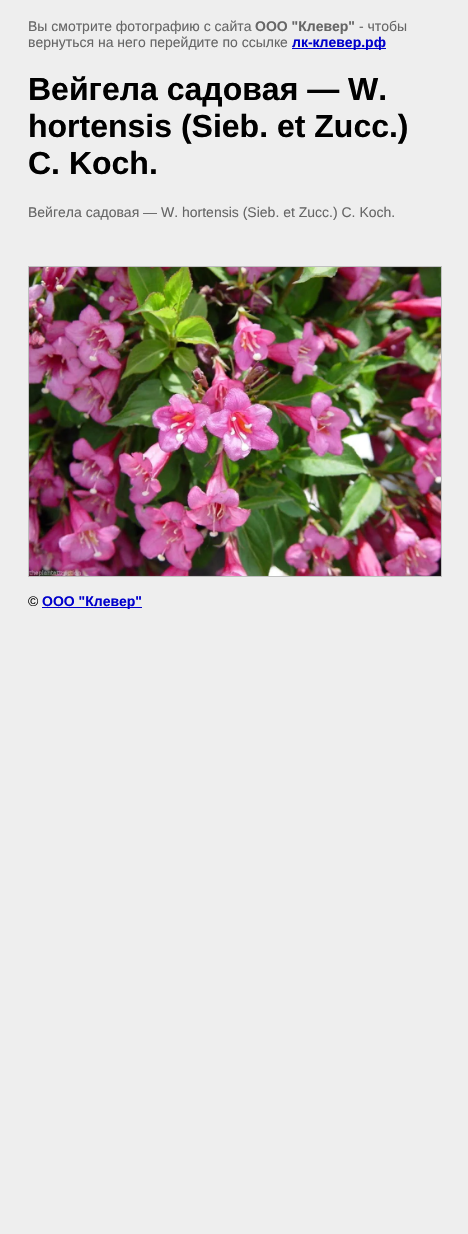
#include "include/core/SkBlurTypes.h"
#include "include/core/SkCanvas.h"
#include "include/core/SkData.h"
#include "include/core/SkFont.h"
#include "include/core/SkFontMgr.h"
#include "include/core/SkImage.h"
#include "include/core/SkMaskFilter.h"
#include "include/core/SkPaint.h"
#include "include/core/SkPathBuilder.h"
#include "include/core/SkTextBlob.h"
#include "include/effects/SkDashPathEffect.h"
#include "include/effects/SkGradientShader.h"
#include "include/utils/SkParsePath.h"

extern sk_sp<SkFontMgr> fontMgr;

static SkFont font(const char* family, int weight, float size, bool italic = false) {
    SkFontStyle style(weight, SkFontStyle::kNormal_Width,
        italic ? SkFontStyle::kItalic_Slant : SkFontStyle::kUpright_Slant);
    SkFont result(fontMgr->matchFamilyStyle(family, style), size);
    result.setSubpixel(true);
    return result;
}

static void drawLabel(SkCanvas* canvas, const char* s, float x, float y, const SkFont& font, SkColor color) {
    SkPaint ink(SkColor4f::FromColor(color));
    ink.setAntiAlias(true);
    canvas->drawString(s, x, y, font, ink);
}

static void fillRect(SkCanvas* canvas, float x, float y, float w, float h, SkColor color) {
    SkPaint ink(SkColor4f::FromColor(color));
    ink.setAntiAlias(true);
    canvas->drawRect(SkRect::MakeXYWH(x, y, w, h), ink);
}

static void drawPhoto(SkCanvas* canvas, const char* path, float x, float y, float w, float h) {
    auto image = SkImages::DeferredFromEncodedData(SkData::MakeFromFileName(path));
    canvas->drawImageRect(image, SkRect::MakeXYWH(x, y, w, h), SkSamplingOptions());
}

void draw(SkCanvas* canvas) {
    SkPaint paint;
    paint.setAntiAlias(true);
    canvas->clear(0xFFEEEEEE);
    SkFont font1 = font("Liberation Sans", 400, 14);
    drawLabel(canvas, "Вы смотрите фотографию с сайта", 28, 31, font1, 0xFF666666);
    SkFont font2 = font("Liberation Sans", 700, 14);
    drawLabel(canvas, "ООО \"Клевер\"", 255, 31, font2, 0xFF666666);
    drawLabel(canvas, "- чтобы", 359, 31, font1, 0xFF666666);
    drawLabel(canvas, "вернуться на него перейдите по ссылке", 28, 47, font1, 0xFF666666);
    fillRect(canvas, 292, 48, 94, 1, 0xFF0000CC);
    drawLabel(canvas, "лк-клевер.рф", 292, 47, font2, 0xFF0000CC);
    SkFont font3 = font("Liberation Sans", 700, 32);
    drawLabel(canvas, "Вейгела садовая — W.", 28, 100, font3, 0xFF000000);
    drawLabel(canvas, "hortensis (Sieb. et Zucc.)", 28, 137, font3, 0xFF000000);
    drawLabel(canvas, "С. Koch.", 28, 174, font3, 0xFF000000);
    drawLabel(canvas, "Вейгела садовая — W. hortensis (Sieb. et Zucc.) С. Koch.", 28, 217, font1, 0xFF666666);
    paint.setStroke(true);
    paint.setStrokeWidth(1);
    paint.setColor(0xFFC0C0C0);
    canvas->drawRect(SkRect::MakeXYWH(28.5f, 266.5f, 413, 310), paint);
    drawPhoto(canvas, "assets/img1.png", 29, 267, 412, 309);
    drawLabel(canvas, "©", 28, 606, font1, 0xFF000000);
    fillRect(canvas, 42, 607, 100, 1, 0xFF0000CC);
    drawLabel(canvas, "ООО \"Клевер\"", 42, 606, font2, 0xFF0000CC);
}
